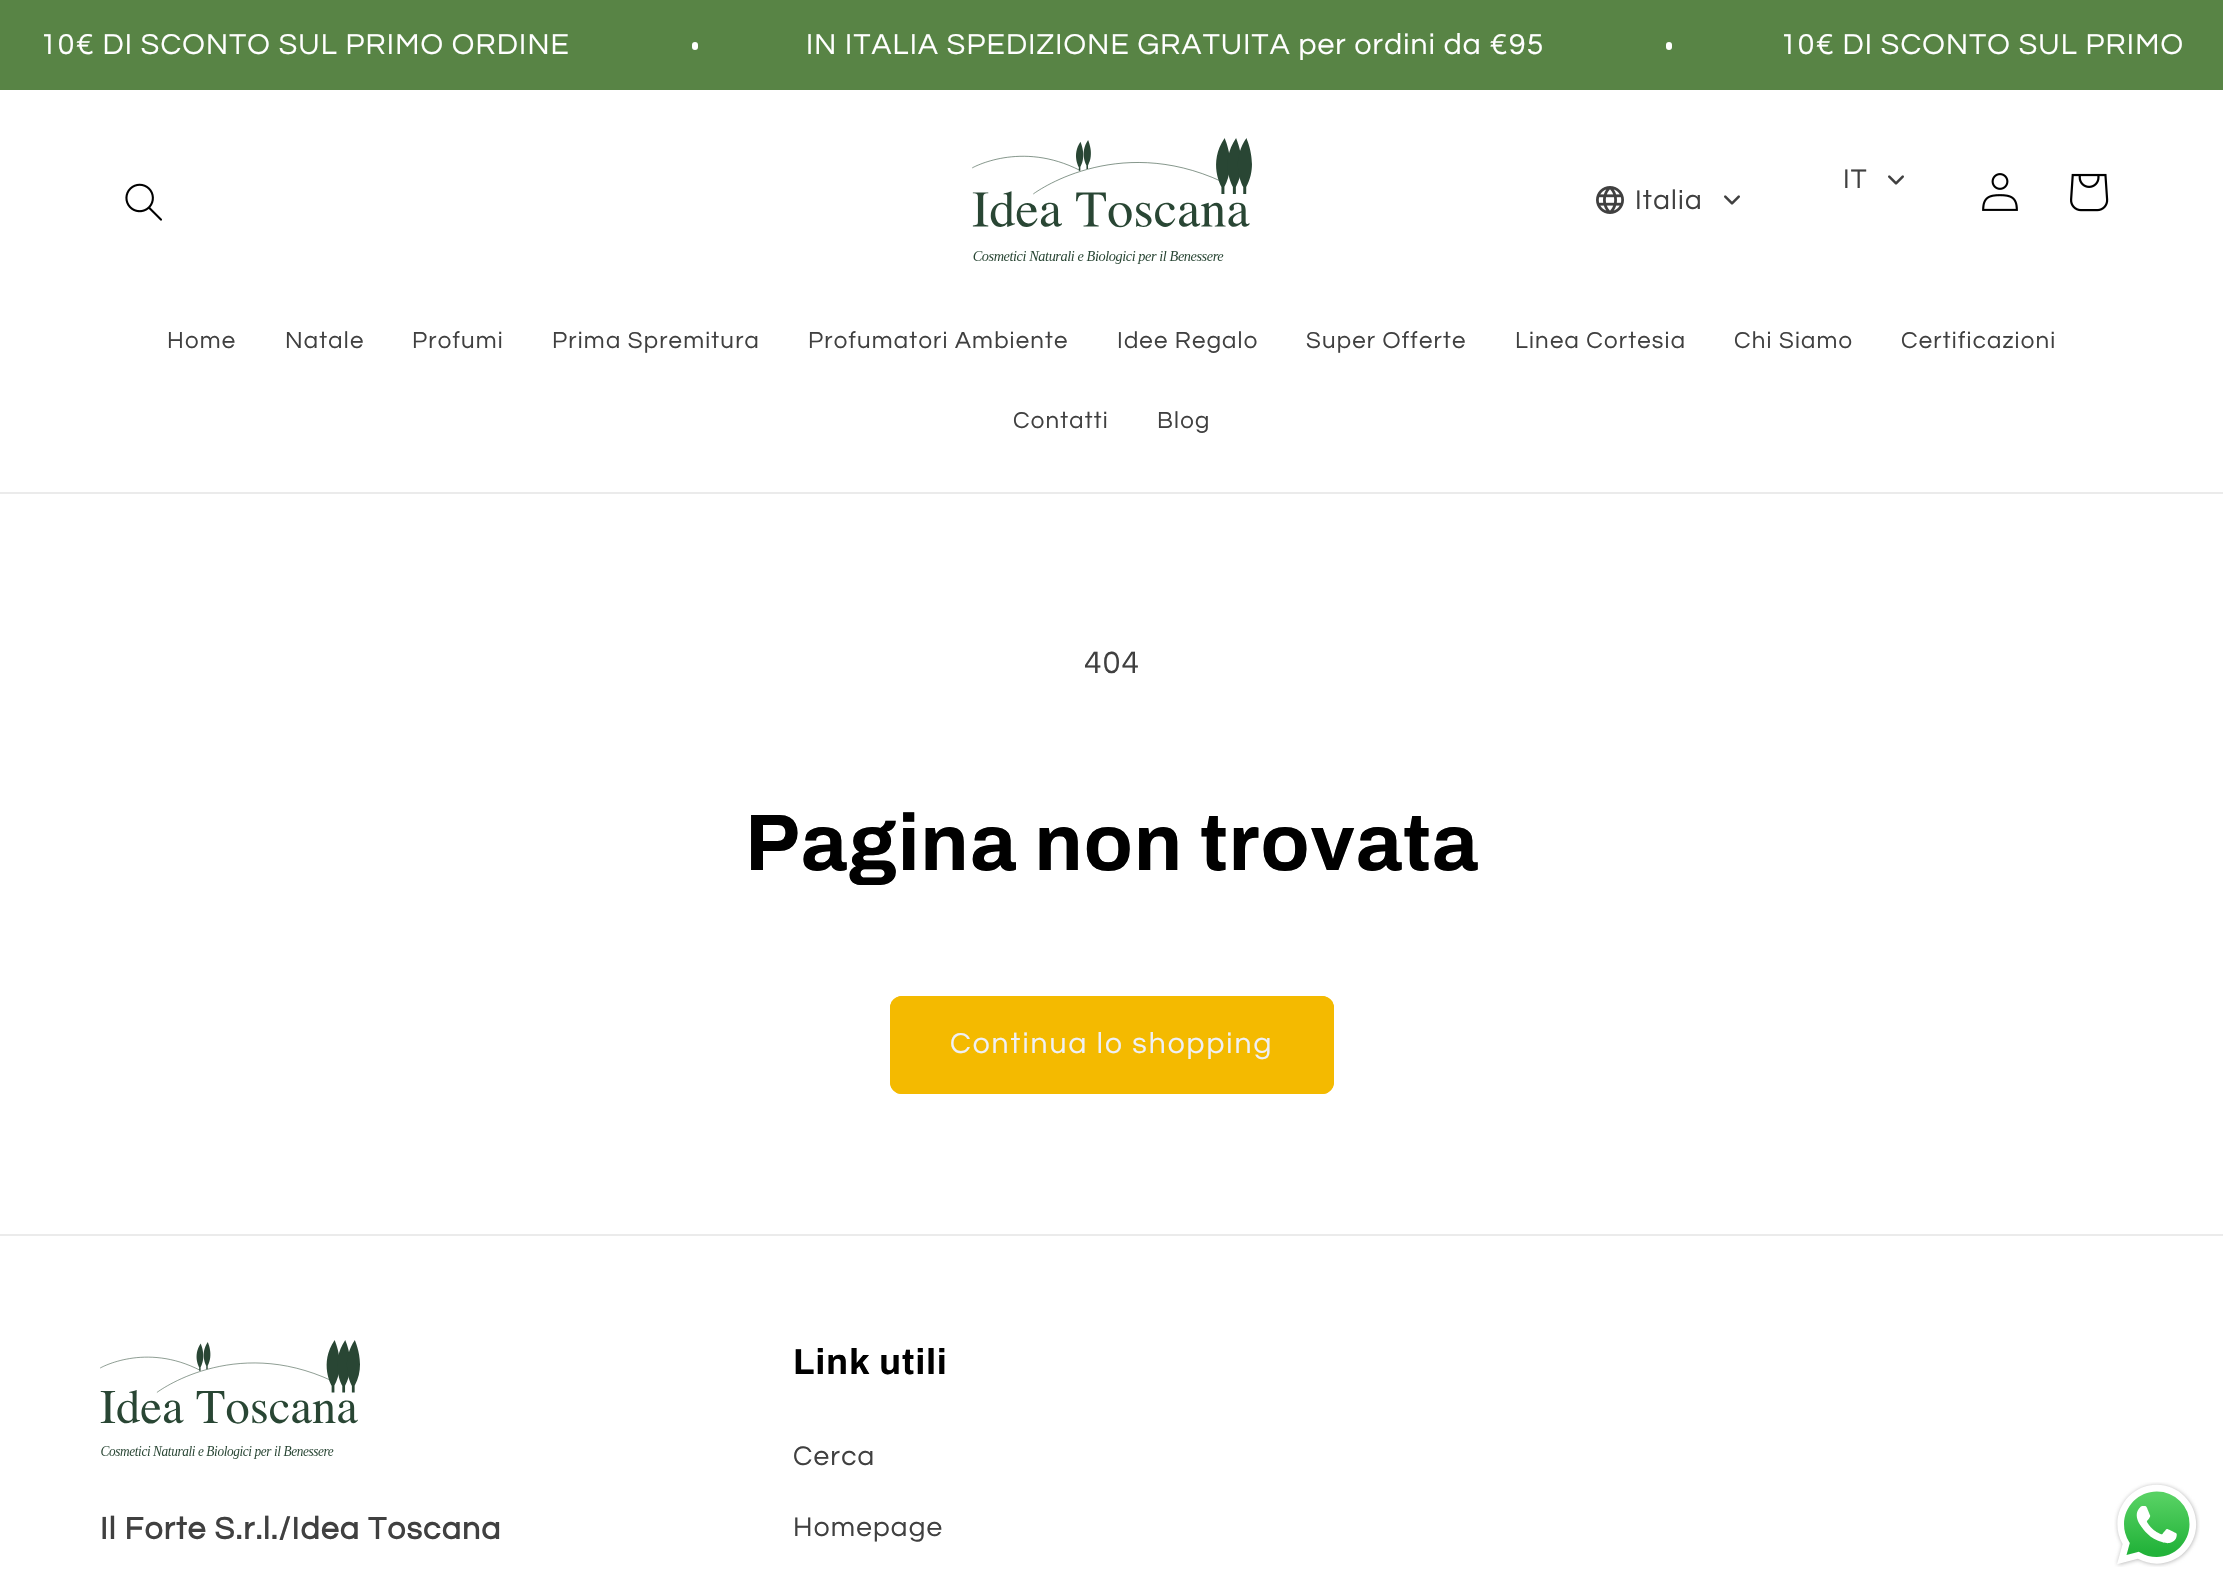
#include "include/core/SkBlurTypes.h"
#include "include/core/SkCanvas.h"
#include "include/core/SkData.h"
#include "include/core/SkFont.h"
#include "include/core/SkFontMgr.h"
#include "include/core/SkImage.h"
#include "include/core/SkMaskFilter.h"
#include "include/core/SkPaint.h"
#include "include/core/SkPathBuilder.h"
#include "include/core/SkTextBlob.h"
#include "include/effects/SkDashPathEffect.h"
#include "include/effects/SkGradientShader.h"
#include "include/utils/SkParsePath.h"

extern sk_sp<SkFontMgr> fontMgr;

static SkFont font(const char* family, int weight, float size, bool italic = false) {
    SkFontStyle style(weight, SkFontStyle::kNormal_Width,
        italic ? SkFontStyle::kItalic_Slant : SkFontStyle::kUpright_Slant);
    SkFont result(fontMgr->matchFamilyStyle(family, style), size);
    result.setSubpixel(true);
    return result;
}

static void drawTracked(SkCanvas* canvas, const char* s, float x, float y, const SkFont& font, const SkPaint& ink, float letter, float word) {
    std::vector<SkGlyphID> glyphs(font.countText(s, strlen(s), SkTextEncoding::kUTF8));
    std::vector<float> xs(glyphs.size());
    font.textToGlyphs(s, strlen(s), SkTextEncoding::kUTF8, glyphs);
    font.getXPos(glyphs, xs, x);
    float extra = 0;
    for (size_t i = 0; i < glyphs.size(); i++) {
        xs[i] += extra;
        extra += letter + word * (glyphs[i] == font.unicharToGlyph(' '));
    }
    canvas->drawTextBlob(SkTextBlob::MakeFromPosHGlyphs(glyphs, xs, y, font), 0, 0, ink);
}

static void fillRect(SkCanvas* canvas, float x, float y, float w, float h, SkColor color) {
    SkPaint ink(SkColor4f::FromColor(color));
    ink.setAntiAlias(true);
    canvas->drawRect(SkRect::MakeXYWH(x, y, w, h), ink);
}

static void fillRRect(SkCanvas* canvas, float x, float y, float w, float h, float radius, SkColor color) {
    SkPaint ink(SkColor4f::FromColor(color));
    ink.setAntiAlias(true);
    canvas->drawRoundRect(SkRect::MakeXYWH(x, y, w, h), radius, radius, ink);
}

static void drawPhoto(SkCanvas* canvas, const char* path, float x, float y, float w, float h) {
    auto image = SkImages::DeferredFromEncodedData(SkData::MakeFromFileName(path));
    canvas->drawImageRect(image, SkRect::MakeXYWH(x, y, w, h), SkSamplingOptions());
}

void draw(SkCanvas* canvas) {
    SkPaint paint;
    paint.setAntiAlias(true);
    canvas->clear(0xFFFFFFFF);
    fillRect(canvas, 0, 0, 2223, 90, 0xFF588445);
    SkFont font1 = font("Questrial", 400, 30);
    paint.setColor(0xFFFFFFFF);
    drawTracked(canvas, "10€ DI SCONTO SUL PRIMO ORDINE", 40, 54, font1, paint, 1.2f, 0);
    fillRRect(canvas, 692, 42, 6, 8, 3, 0xFFFFFFFF);
    drawTracked(canvas, "IN ITALIA SPEDIZIONE GRATUITA per ordini da €95", 806, 54, font1, paint, 1.2f, 0);
    fillRRect(canvas, 1666, 42, 6, 8, 3, 0xFFFFFFFF);
    drawTracked(canvas, "10€ DI SCONTO SUL PRIMO", 1780, 54, font1, paint, 1.2f, 0);
    fillRect(canvas, 0, 492, 2223, 2, 0xFFEBEBEB);
    drawPhoto(canvas, "assets/img1.png", 125, 183, 37, 38);
    drawPhoto(canvas, "assets/img2.png", 972, 138, 280, 126);
    SkFont font2 = font("Questrial", 400, 28);
    paint.setColor(0xFF404040);
    drawTracked(canvas, "IT", 1843, 188, font2, paint, 1.2f, 0);
    drawPhoto(canvas, "assets/img3.png", 1888, 175, 16, 10);
    drawPhoto(canvas, "assets/img4.png", 1596, 186, 28, 28);
    drawTracked(canvas, "Italia", 1635, 209, font2, paint, 1.2f, 0);
    drawPhoto(canvas, "assets/img3.png", 1724, 195, 16, 10);
    drawPhoto(canvas, "assets/img5.png", 1982, 173, 36, 38);
    drawPhoto(canvas, "assets/img6.png", 2070, 173, 39, 39);
    SkFont font3 = font("Questrial", 400, 24);
    drawTracked(canvas, "Home", 167, 348, font3, paint, 1.2f, 0);
    drawTracked(canvas, "Natale", 285, 348, font3, paint, 1.2f, 0);
    drawTracked(canvas, "Profumi", 412, 348, font3, paint, 1.2f, 0);
    drawTracked(canvas, "Prima Spremitura", 552, 348, font3, paint, 1.2f, 0);
    drawTracked(canvas, "Profumatori Ambiente", 808, 348, font3, paint, 1.2f, 0);
    drawTracked(canvas, "Idee Regalo", 1117, 348, font3, paint, 1.2f, 0);
    drawTracked(canvas, "Super Offerte", 1306, 348, font3, paint, 1.2f, 0);
    drawTracked(canvas, "Linea Cortesia", 1515, 348, font3, paint, 1.2f, 0);
    drawTracked(canvas, "Chi Siamo", 1734, 348, font3, paint, 1.2f, 0);
    drawTracked(canvas, "Certificazioni", 1901, 348, font3, paint, 1.2f, 0);
    drawTracked(canvas, "Contatti", 1013, 428, font3, paint, 1.2f, 0);
    drawTracked(canvas, "Blog", 1157, 428, font3, paint, 1.2f, 0);
    SkFont font4 = font("Questrial", 400, 32);
    drawTracked(canvas, "404", 1084, 673, font4, paint, 1.2f, 0);
    SkFont font5 = font("Archivo", 700, 80);
    paint.setColor(0xFF000000);
    drawTracked(canvas, "Pagina non trovata", 745, 870, font5, paint, 1.2f, 0);
    fillRRect(canvas, 890, 996, 444, 98, 12, 0xFFF4BA00);
    paint.setStroke(true);
    paint.setStrokeWidth(4);
    paint.setColor(0xFFF4BA00);
    canvas->drawRoundRect(SkRect::MakeXYWH(892, 998, 440, 94), 10, 10, paint);
    paint.setStroke(false);
    paint.setColor(0xFFEFF0F5);
    drawTracked(canvas, "Continua lo shopping", 950, 1053, font1, paint, 2, 0);
    fillRect(canvas, 0, 1234, 2223, 2, 0xFFEBEBEB);
    drawPhoto(canvas, "assets/img7.png", 100, 1340, 260, 119);
    SkFont font6 = font("Questrial", 700, 32);
    paint.setColor(0xFF404040);
    drawTracked(canvas, "Il Forte S.r.l./Idea Toscana", 100, 1539, font6, paint, 1.2f, 0);
    SkFont font7 = font("Archivo", 700, 36);
    paint.setColor(0xFF000000);
    drawTracked(canvas, "Link utili", 793, 1374, font7, paint, 1.2f, 0);
    paint.setColor(0xFF404040);
    drawTracked(canvas, "Cerca", 793, 1465, font2, paint, 1.2f, 0);
    drawTracked(canvas, "Homepage", 793, 1536, font2, paint, 1.2f, 0);
    drawPhoto(canvas, "assets/img8.png", 2114, 1482, 86, 85);
}
